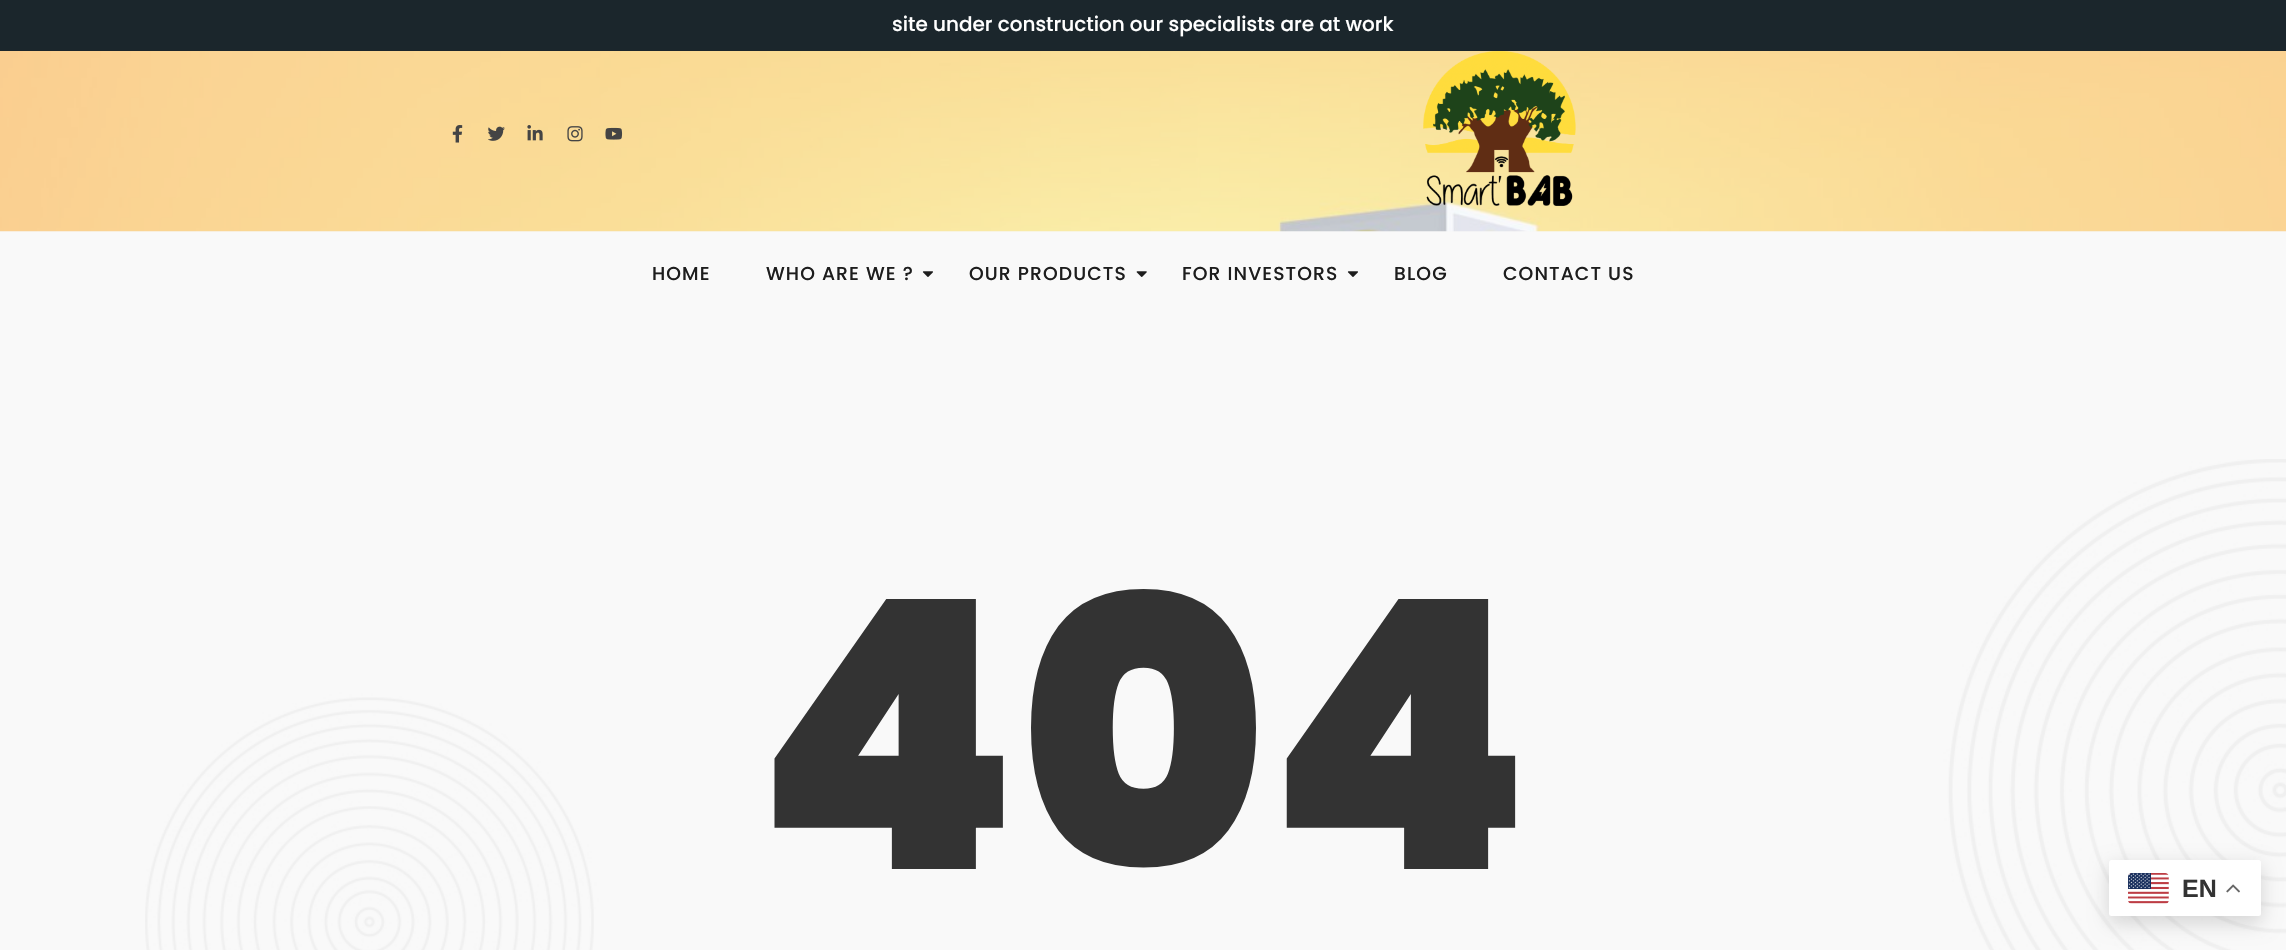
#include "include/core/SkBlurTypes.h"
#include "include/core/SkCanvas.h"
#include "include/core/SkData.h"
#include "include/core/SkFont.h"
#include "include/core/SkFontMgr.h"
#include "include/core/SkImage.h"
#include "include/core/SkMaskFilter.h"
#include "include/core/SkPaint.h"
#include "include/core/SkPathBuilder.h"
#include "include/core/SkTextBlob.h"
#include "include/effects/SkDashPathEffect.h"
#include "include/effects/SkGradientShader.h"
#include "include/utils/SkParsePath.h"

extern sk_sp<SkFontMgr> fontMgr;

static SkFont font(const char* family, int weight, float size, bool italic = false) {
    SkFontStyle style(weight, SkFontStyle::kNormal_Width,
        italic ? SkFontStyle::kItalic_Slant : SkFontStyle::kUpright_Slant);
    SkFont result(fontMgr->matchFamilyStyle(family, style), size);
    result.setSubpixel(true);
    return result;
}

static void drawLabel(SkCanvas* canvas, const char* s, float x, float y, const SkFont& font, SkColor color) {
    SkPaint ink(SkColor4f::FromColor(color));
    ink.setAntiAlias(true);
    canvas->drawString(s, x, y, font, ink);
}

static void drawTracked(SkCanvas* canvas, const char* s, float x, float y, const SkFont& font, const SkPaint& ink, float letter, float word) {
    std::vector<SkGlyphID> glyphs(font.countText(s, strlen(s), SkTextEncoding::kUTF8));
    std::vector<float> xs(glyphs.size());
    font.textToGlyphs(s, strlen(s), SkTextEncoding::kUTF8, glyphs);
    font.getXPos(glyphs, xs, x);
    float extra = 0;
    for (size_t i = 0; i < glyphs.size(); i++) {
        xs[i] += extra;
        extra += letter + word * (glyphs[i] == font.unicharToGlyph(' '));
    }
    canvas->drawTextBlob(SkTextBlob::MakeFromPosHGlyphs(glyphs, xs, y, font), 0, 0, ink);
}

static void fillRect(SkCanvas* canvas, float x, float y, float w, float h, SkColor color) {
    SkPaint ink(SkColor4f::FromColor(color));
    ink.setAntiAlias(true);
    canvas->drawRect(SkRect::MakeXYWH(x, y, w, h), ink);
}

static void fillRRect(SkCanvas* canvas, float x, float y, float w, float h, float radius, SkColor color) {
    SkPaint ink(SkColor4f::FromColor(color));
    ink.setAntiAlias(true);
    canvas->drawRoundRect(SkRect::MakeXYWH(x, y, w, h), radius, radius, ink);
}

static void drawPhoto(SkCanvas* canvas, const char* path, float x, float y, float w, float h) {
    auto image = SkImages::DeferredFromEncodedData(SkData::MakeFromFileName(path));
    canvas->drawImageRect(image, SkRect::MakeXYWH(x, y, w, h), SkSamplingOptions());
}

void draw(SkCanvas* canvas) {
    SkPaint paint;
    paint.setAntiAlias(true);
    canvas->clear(0xFFF9F9F9);
    fillRect(canvas, 0, 0, 2286, 51, 0xFF1B262C);
    SkFont font1 = font("Poppins", 500, 20);
    drawLabel(canvas, "site under construction our specialists are at work", 892, 31, font1, 0xFFFFFFFF);
    drawPhoto(canvas, "assets/img1.png", 0, 51, 2286, 181);
    drawPhoto(canvas, "assets/img2.png", 452, 125, 11, 18);
    drawPhoto(canvas, "assets/img3.png", 488, 126, 17, 15);
    drawPhoto(canvas, "assets/img4.png", 527, 125, 16, 16);
    drawPhoto(canvas, "assets/img5.png", 567, 126, 16, 16);
    drawPhoto(canvas, "assets/img6.png", 605, 127, 18, 13);
    drawPhoto(canvas, "assets/img7.png", 1423, 51, 153, 155);
    SkFont font2 = font("Poppins", 500, 18.75f);
    paint.setColor(0xFF1D1D1D);
    drawTracked(canvas, "HOME", 652, 280, font2, paint, 1.1f, 0);
    drawTracked(canvas, "WHO ARE WE ?", 766, 280, font2, paint, 1.1f, 0);
    drawPhoto(canvas, "assets/img8.png", 922, 271, 11, 6);
    drawTracked(canvas, "OUR PRODUCTS", 969, 280, font2, paint, 1.1f, 0);
    drawPhoto(canvas, "assets/img9.png", 1136, 271, 11, 6);
    drawTracked(canvas, "FOR INVESTORS", 1182, 280, font2, paint, 1.1f, 0);
    drawPhoto(canvas, "assets/img8.png", 1347, 271, 11, 6);
    drawTracked(canvas, "BLOG", 1394, 280, font2, paint, 1.1f, 0);
    drawTracked(canvas, "CONTACT US", 1503, 280, font2, paint, 1.1f, 0);
    drawPhoto(canvas, "assets/img10.png", 145, 459, 2141, 491);
    SkFont font3 = font("Poppins", 900, 375);
    drawLabel(canvas, "404", 755, 869, font3, 0xFF333333);
    paint.setColor(0x26000000);
    paint.setMaskFilter(SkMaskFilter::MakeBlur(kNormal_SkBlurStyle, 9.5f));
    canvas->drawRoundRect(SkRect::MakeXYWH(2109, 866, 152, 57), 2.5f, 2.5f, paint);
    paint.setMaskFilter(nullptr);
    fillRRect(canvas, 2109, 860, 152, 56, 2.5f, 0xFFFFFFFF);
    drawPhoto(canvas, "assets/img11.png", 2128, 873, 41, 31);
    SkFont font4 = font("Liberation Sans", 700, 25);
    drawLabel(canvas, "EN", 2182, 897, font4, 0xFF333333);
    drawPhoto(canvas, "assets/img12.png", 2226, 884, 14, 9);
}
